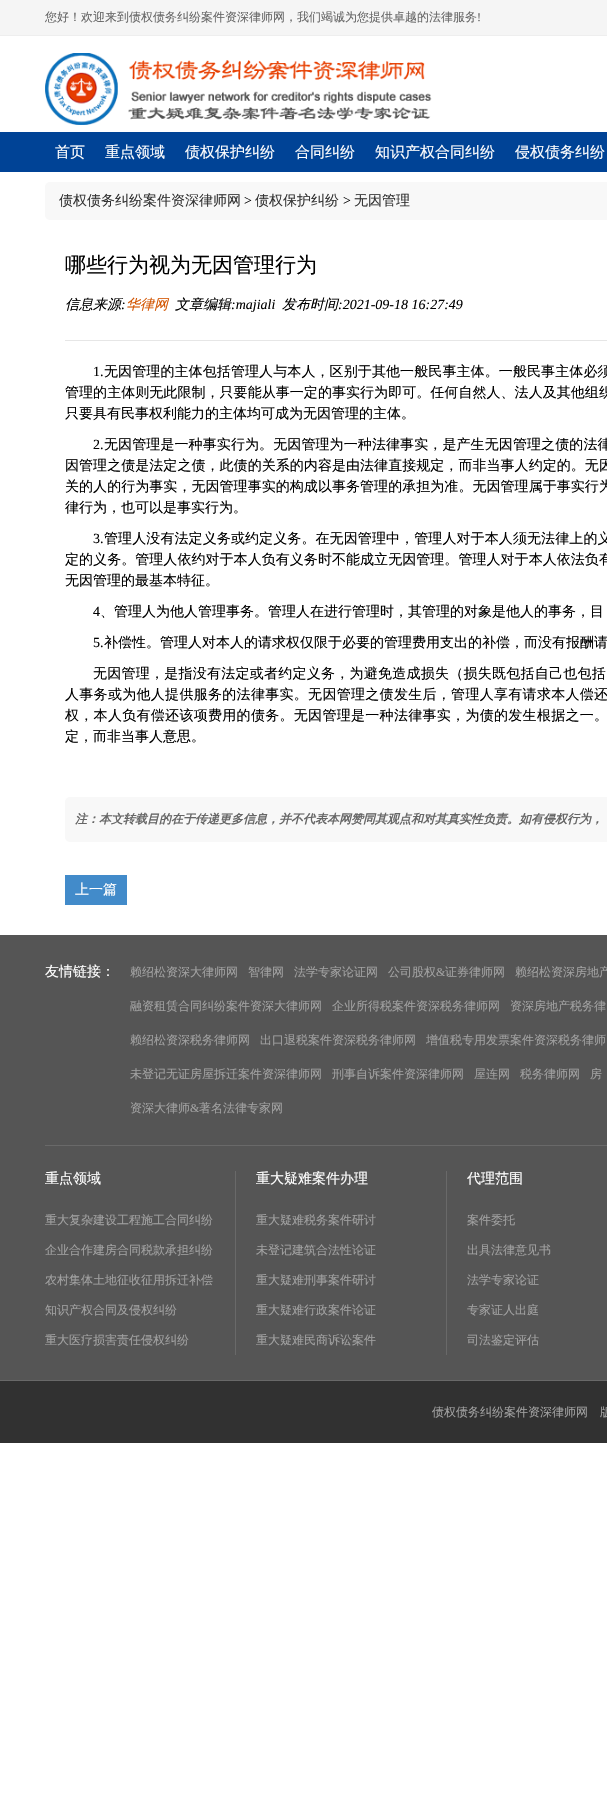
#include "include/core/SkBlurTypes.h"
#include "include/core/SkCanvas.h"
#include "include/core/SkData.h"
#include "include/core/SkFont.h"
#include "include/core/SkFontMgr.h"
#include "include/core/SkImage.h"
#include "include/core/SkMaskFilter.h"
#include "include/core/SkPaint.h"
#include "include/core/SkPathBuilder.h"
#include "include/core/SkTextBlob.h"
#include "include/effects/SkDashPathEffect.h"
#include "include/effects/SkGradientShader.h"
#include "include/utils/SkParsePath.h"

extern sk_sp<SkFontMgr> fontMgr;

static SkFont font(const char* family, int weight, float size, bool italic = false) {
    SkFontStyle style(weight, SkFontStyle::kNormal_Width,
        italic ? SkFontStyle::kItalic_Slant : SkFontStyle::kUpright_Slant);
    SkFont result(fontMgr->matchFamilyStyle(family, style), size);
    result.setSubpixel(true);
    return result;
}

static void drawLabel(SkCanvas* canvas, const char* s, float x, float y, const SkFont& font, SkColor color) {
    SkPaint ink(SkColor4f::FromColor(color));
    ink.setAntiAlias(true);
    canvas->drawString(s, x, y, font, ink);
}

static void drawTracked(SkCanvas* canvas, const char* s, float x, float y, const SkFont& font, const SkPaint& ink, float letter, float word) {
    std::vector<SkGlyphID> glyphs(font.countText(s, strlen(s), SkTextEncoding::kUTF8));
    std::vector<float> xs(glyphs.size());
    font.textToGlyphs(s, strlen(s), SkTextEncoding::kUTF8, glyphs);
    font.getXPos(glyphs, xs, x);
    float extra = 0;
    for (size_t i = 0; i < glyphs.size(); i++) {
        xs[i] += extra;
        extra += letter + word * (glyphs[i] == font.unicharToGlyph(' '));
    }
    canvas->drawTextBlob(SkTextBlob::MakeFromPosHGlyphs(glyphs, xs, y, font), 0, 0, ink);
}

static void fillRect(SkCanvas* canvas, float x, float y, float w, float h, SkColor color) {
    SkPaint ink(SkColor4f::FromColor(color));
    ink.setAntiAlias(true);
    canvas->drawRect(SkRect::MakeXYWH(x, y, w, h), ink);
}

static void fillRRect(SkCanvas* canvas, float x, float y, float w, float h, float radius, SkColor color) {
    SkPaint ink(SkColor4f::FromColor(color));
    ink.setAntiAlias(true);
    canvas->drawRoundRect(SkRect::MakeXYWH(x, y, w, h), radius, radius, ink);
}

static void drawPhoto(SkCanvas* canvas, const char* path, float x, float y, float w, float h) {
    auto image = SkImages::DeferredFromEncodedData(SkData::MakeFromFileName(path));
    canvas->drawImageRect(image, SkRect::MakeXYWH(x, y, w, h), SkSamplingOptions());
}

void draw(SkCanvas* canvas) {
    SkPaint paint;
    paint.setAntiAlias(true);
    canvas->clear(0xFFFFFFFF);
    fillRect(canvas, 0, 0, 607, 35, 0xFFF5F5F5);
    fillRect(canvas, 0, 35, 607, 1, 0xFFEEEEEE);
    SkFont font1 = font("WenQuanYi Zen Hei", 500, 12);
    drawLabel(canvas, "您好！欢迎来到债权债务纠纷案件资深律师网，我们竭诚为您提供卓越的法律服务", 45, 21, font1, 0xFF666666);
    SkFont font2 = font("Liberation Serif", 400, 12);
    drawLabel(canvas, "!", 477, 21, font2, 0xFF666666);
    drawPhoto(canvas, "assets/img1.png", 45, 53, 387, 72);
    fillRect(canvas, 0, 132, 607, 40, 0xFF004396);
    SkFont font3 = font("WenQuanYi Zen Hei", 500, 15);
    drawLabel(canvas, "首页", 55, 157, font3, 0xFFFFFFFF);
    drawLabel(canvas, "重点领域", 105, 157, font3, 0xFFFFFFFF);
    drawLabel(canvas, "债权保护纠纷", 185, 157, font3, 0xFFFFFFFF);
    drawLabel(canvas, "合同纠纷", 295, 157, font3, 0xFFFFFFFF);
    drawLabel(canvas, "知识产权合同纠纷", 375, 157, font3, 0xFFFFFFFF);
    drawLabel(canvas, "侵权债务纠纷", 515, 157, font3, 0xFFFFFFFF);
    fillRRect(canvas, 45, 182, 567, 38, 5, 0xFFF8F8F8);
    SkFont font4 = font("WenQuanYi Zen Hei", 500, 14);
    drawLabel(canvas, "债权债务纠纷案件资深律师网", 59, 205, font4, 0xFF333333);
    SkFont font5 = font("Liberation Serif", 400, 14);
    drawLabel(canvas, ">", 244, 205, font5, 0xFF000000);
    drawLabel(canvas, "债权保护纠纷", 255, 205, font4, 0xFF333333);
    drawLabel(canvas, ">", 343, 205, font5, 0xFF000000);
    drawLabel(canvas, "无因管理", 354, 205, font4, 0xFF333333);
    SkFont font6 = font("WenQuanYi Zen Hei", 500, 21);
    drawLabel(canvas, "哪些行为视为无因管理行为", 65, 272, font6, 0xFF000000);
    SkFont font7 = font("WenQuanYi Zen Hei", 500, 14, true);
    drawLabel(canvas, "信息来源", 65, 309, font7, 0xFF000000);
    drawLabel(canvas, "华律网", 126, 309, font7, 0xFFD35400);
    drawLabel(canvas, "文章编辑", 175, 309, font7, 0xFF000000);
    SkFont font8 = font("Liberation Serif", 400, 14, true);
    drawLabel(canvas, ":majiali", 231, 309, font8, 0xFF000000);
    drawLabel(canvas, "发布时间", 282, 309, font7, 0xFF000000);
    drawLabel(canvas, ":2021-09-18 16:27:49", 338, 309, font8, 0xFF000000);
    drawLabel(canvas, ":", 121, 309, font8, 0xFF000000);
    fillRect(canvas, 65, 340, 542, 1, 0xFFE6E6E6);
    paint.setColor(0xFF000000);
    drawTracked(canvas, "1.", 93, 376, font5, paint, 0.1f, 0);
    drawTracked(canvas, "无因管理的主体包括管理人与本人，区别于其他一般民事主体。一般民事主体必须", 104, 376, font4, paint, 0.1f, 0);
    drawTracked(canvas, "管理的主体则无此限制，只要能从事一定的事实行为即可。任何自然人、法人及其他组织", 65, 397, font4, paint, 0.05f, 0);
    drawLabel(canvas, "只要具有民事权利能力的主体均可成为无因管理的主体。", 65, 418, font4, 0xFF000000);
    drawTracked(canvas, "2.", 93, 449, font5, paint, 0.1f, 0);
    drawTracked(canvas, "无因管理是一种事实行为。无因管理为一种法律事实，是产生无因管理之债的法律", 104, 449, font4, paint, 0.1f, 0);
    drawTracked(canvas, "因管理之债是法定之债，此债的关系的内容是由法律直接规定，而非当事人约定的。无因", 65, 470, font4, paint, 0.05f, 0);
    drawTracked(canvas, "关的人的行为事实，无因管理事实的构成以事务管理的承担为准。无因管理属于事实行为", 65, 491, font4, paint, 0.05f, 0);
    drawLabel(canvas, "律行为，也可以是事实行为。", 65, 512, font4, 0xFF000000);
    drawTracked(canvas, "3.", 93, 543, font5, paint, 0.1f, 0);
    drawTracked(canvas, "管理人没有法定义务或约定义务。在无因管理中，管理人对于本人须无法律上的义", 104, 543, font4, paint, 0.1f, 0);
    drawTracked(canvas, "定的义务。管理人依约对于本人负有义务时不能成立无因管理。管理人对于本人依法负有", 65, 564, font4, paint, 0.05f, 0);
    drawLabel(canvas, "无因管理的最基本特征。", 65, 585, font4, 0xFF000000);
    drawLabel(canvas, "4", 93, 616, font5, 0xFF000000);
    drawLabel(canvas, "、管理人为他人管理事务。管理人在进行管理时，其管理的对象是他人的事务，目", 100, 616, font4, 0xFF000000);
    drawLabel(canvas, "5.", 93, 647, font5, 0xFF000000);
    drawLabel(canvas, "补偿性。管理人对本人的请求权仅限于必要的管理费用支出的补偿，而没有报酬请", 104, 647, font4, 0xFF000000);
    drawTracked(canvas, "无因管理，是指没有法定或者约定义务，为避免造成损失（损失既包括自己也包括", 93, 678, font4, paint, 0.25f, 0);
    drawTracked(canvas, "人事务或为他人提供服务的法律事实。无因管理之债发生后，管理人享有请求本人偿还", 65, 699, font4, paint, 0.3f, 0);
    drawTracked(canvas, "权，本人负有偿还该项费用的债务。无因管理是一种法律事实，为债的发生根据之一。", 65, 720, font4, paint, 0.3f, 0);
    drawLabel(canvas, "定，而非当事人意思。", 65, 741, font4, 0xFF000000);
    fillRRect(canvas, 65, 797, 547, 45, 5, 0xFFF8F8F8);
    SkFont font9 = font("WenQuanYi Zen Hei", 700, 12, true);
    drawLabel(canvas, "注：本文转载目的在于传递更多信息，并不代表本网赞同其观点和对其真实性负责。如有侵权行为，", 75, 823, font9, 0xFF666666);
    fillRect(canvas, 65, 875, 62, 30, 0xFF428BCA);
    drawLabel(canvas, "上一篇", 75, 894, font4, 0xFFFFFFFF);
    fillRect(canvas, 0, 935, 607, 445, 0xFF555555);
    fillRect(canvas, 0, 1380, 607, 1, 0xFF696969);
    fillRect(canvas, 45, 1145, 562, 1, 0xFF696969);
    drawLabel(canvas, "友情链接：", 45, 976, font4, 0xFFFFFFFF);
    drawLabel(canvas, "赖绍松资深大律师网", 130, 976, font1, 0xFFA1A1A1);
    drawLabel(canvas, "智律网", 248, 976, font1, 0xFFA1A1A1);
    drawLabel(canvas, "法学专家论证网", 294, 976, font1, 0xFFA1A1A1);
    drawLabel(canvas, "公司股权", 388, 976, font1, 0xFFA1A1A1);
    drawLabel(canvas, "&", 436, 976, font2, 0xFFA1A1A1);
    drawLabel(canvas, "证券律师网", 445, 976, font1, 0xFFA1A1A1);
    drawLabel(canvas, "赖绍松资深房地产", 515, 976, font1, 0xFFA1A1A1);
    drawLabel(canvas, "融资租赁合同纠纷案件资深大律师网", 130, 1010, font1, 0xFFA1A1A1);
    drawLabel(canvas, "企业所得税案件资深税务律师网", 332, 1010, font1, 0xFFA1A1A1);
    drawLabel(canvas, "资深房地产税务律", 510, 1010, font1, 0xFFA1A1A1);
    drawLabel(canvas, "赖绍松资深税务律师网", 130, 1044, font1, 0xFFA1A1A1);
    drawLabel(canvas, "出口退税案件资深税务律师网", 260, 1044, font1, 0xFFA1A1A1);
    drawLabel(canvas, "增值税专用发票案件资深税务律师", 426, 1044, font1, 0xFFA1A1A1);
    drawLabel(canvas, "未登记无证房屋拆迁案件资深律师网", 130, 1078, font1, 0xFFA1A1A1);
    drawLabel(canvas, "刑事自诉案件资深律师网", 332, 1078, font1, 0xFFA1A1A1);
    drawLabel(canvas, "屋连网", 474, 1078, font1, 0xFFA1A1A1);
    drawLabel(canvas, "税务律师网", 520, 1078, font1, 0xFFA1A1A1);
    drawLabel(canvas, "房", 590, 1078, font1, 0xFFA1A1A1);
    drawLabel(canvas, "资深大律师", 130, 1112, font1, 0xFFA1A1A1);
    drawLabel(canvas, "&", 190, 1112, font2, 0xFFA1A1A1);
    drawLabel(canvas, "著名法律专家网", 199, 1112, font1, 0xFFA1A1A1);
    fillRect(canvas, 235, 1171, 1, 184, 0xFF696969);
    drawLabel(canvas, "重点领域", 45, 1183, font4, 0xFFFFFFFF);
    drawLabel(canvas, "重大复杂建设工程施工合同纠纷", 45, 1224, font1, 0xFFA1A1A1);
    drawLabel(canvas, "企业合作建房合同税款承担纠纷", 45, 1254, font1, 0xFFA1A1A1);
    drawLabel(canvas, "农村集体土地征收征用拆迁补偿", 45, 1284, font1, 0xFFA1A1A1);
    drawLabel(canvas, "知识产权合同及侵权纠纷", 45, 1314, font1, 0xFFA1A1A1);
    drawLabel(canvas, "重大医疗损害责任侵权纠纷", 45, 1344, font1, 0xFFA1A1A1);
    fillRect(canvas, 446, 1171, 1, 184, 0xFF696969);
    drawLabel(canvas, "重大疑难案件办理", 256, 1183, font4, 0xFFFFFFFF);
    drawLabel(canvas, "重大疑难税务案件研讨", 256, 1224, font1, 0xFFA1A1A1);
    drawLabel(canvas, "未登记建筑合法性论证", 256, 1254, font1, 0xFFA1A1A1);
    drawLabel(canvas, "重大疑难刑事案件研讨", 256, 1284, font1, 0xFFA1A1A1);
    drawLabel(canvas, "重大疑难行政案件论证", 256, 1314, font1, 0xFFA1A1A1);
    drawLabel(canvas, "重大疑难民商诉讼案件", 256, 1344, font1, 0xFFA1A1A1);
    drawLabel(canvas, "代理范围", 467, 1183, font4, 0xFFFFFFFF);
    drawLabel(canvas, "案件委托", 467, 1224, font1, 0xFFA1A1A1);
    drawLabel(canvas, "出具法律意见书", 467, 1254, font1, 0xFFA1A1A1);
    drawLabel(canvas, "法学专家论证", 467, 1284, font1, 0xFFA1A1A1);
    drawLabel(canvas, "专家证人出庭", 467, 1314, font1, 0xFFA1A1A1);
    drawLabel(canvas, "司法鉴定评估", 467, 1344, font1, 0xFFA1A1A1);
    fillRect(canvas, 0, 1381, 607, 62, 0xFF313131);
    drawLabel(canvas, "债权债务纠纷案件资深律师网　版", 432, 1416, font1, 0xFFA1A1A1);
}
